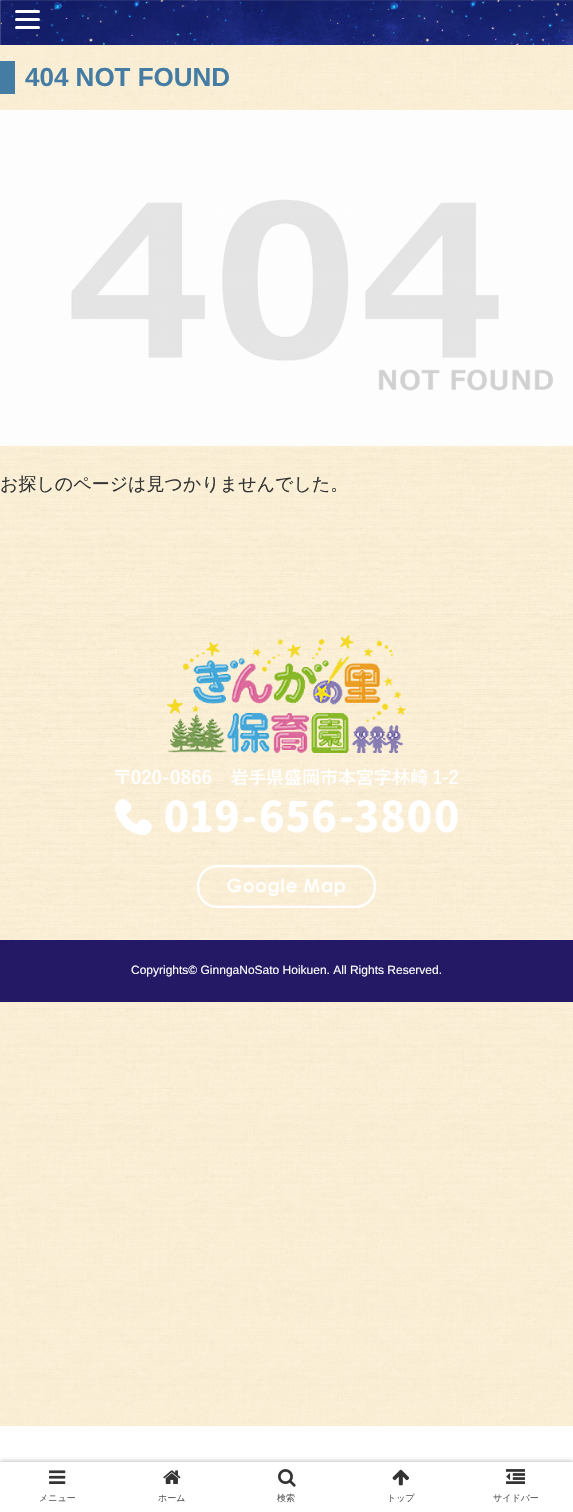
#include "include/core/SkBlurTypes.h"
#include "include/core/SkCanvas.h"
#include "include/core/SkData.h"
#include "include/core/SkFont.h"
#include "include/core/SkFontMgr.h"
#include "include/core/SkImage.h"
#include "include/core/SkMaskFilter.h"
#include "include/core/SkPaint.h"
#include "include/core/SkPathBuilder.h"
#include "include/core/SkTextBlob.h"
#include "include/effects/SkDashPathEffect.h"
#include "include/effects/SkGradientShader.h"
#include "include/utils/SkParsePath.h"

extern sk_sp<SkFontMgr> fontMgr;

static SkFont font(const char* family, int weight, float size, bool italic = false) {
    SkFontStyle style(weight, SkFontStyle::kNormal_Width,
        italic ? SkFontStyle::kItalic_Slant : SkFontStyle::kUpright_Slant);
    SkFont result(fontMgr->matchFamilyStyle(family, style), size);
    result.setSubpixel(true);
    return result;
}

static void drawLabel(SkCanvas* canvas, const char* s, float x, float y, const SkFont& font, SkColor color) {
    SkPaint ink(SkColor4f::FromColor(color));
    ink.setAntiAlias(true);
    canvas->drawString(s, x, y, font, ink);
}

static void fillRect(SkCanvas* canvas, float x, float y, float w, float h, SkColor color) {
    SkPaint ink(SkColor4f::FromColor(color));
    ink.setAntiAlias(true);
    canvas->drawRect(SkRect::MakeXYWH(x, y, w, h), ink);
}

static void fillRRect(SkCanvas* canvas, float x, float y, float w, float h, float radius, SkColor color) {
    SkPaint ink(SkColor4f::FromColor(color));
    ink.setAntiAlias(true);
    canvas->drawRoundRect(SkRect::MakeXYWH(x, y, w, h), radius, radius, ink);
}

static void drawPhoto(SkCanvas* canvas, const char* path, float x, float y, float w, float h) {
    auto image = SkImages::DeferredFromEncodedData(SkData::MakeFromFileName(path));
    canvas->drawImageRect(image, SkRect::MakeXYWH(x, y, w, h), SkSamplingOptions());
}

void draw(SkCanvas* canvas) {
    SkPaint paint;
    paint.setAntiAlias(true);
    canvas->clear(0xFFFFFFFF);
    drawPhoto(canvas, "assets/img1.png", 0, 0, 573, 1426);
    drawPhoto(canvas, "assets/img2.png", 0, 0, 573, 45);
    fillRRect(canvas, 15, 10, 25, 3, 1.5f, 0xFFFFFFFF);
    fillRRect(canvas, 15, 18, 25, 3, 1.5f, 0xFFFFFFFF);
    fillRRect(canvas, 15, 26, 25, 3, 1.5f, 0xFFFFFFFF);
    fillRect(canvas, 0, 61, 15, 33, 0xFF447CA3);
    SkFont font1 = font("Liberation Sans", 700, 26);
    drawLabel(canvas, "404 NOT FOUND", 25, 86, font1, 0xFF447CA3);
    drawPhoto(canvas, "assets/img3.png", 0, 110, 573, 336);
    SkFont font2 = font("WenQuanYi Zen Hei", 500, 18);
    drawLabel(canvas, "お探しのページは見つかりませんでした。", 0, 490, font2, 0xFF333333);
    drawPhoto(canvas, "assets/img4.png", 167, 635, 239, 118);
    drawPhoto(canvas, "assets/img5.png", 115, 768, 343, 67);
    drawPhoto(canvas, "assets/img6.png", 197, 865, 179, 43);
    fillRect(canvas, 0, 940, 573, 62, 0xFF231964);
    SkFont font3 = font("Liberation Sans", 400, 12);
    drawLabel(canvas, "Copyrights© GinngaNoSato Hoikuen. All Rights Reserved.", 131, 974, font3, 0xFFFFFFFF);
    canvas->save();
    canvas->clipRect(SkRect::MakeXYWH(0, 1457, 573, 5));
    paint.setColor(0xFFA9A9A9);
    paint.setMaskFilter(SkMaskFilter::MakeBlur(kNormal_SkBlurStyle, 2.5f));
    canvas->drawRect(SkRect::MakeXYWH(0, 1462, 573, 50), paint);
    paint.setMaskFilter(nullptr);
    canvas->restore();
    drawPhoto(canvas, "assets/img7.png", 49, 1470, 17, 14);
    SkFont font4 = font("WenQuanYi Zen Hei", 500, 9);
    drawLabel(canvas, "メニュー", 39, 1501, font4, 0xFF5C5C5C);
    drawPhoto(canvas, "assets/img8.png", 163, 1470, 18, 14);
    drawLabel(canvas, "ホーム", 158, 1501, font4, 0xFF5C5C5C);
    drawPhoto(canvas, "assets/img9.png", 278, 1469, 18, 18);
    drawLabel(canvas, "検索", 277, 1501, font4, 0xFF5C5C5C);
    drawPhoto(canvas, "assets/img10.png", 392, 1469, 17, 17);
    drawLabel(canvas, "トップ", 387, 1501, font4, 0xFF5C5C5C);
    drawPhoto(canvas, "assets/img11.png", 506, 1469, 19, 15);
    drawLabel(canvas, "サイドバー", 493, 1501, font4, 0xFF5C5C5C);
}
